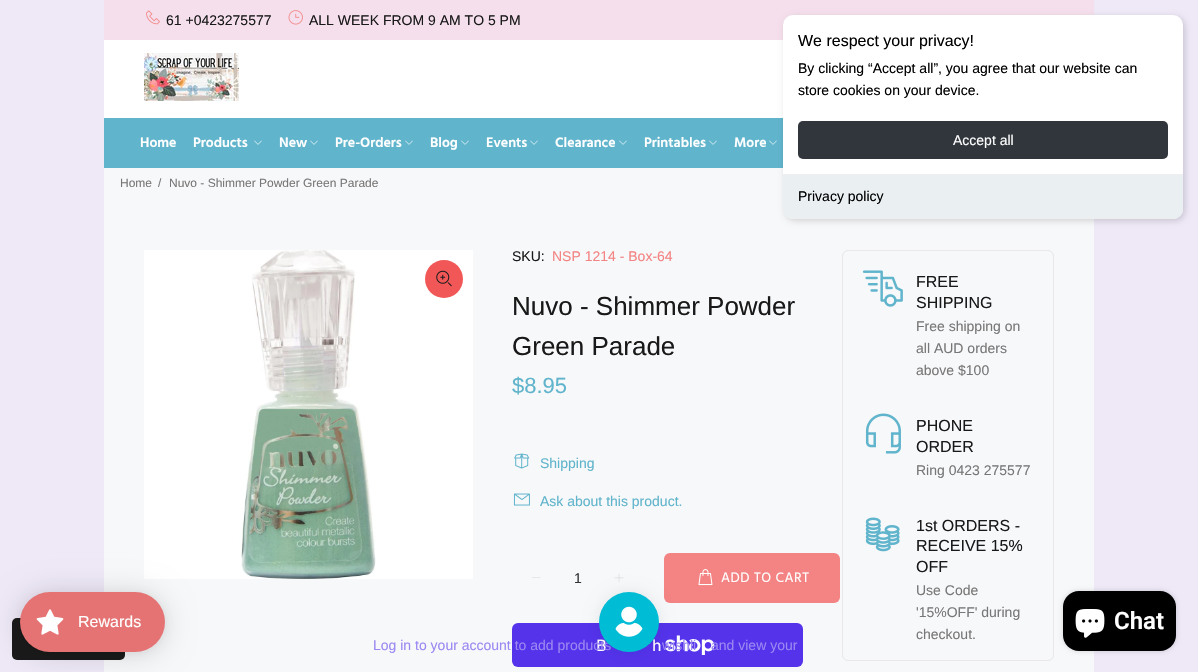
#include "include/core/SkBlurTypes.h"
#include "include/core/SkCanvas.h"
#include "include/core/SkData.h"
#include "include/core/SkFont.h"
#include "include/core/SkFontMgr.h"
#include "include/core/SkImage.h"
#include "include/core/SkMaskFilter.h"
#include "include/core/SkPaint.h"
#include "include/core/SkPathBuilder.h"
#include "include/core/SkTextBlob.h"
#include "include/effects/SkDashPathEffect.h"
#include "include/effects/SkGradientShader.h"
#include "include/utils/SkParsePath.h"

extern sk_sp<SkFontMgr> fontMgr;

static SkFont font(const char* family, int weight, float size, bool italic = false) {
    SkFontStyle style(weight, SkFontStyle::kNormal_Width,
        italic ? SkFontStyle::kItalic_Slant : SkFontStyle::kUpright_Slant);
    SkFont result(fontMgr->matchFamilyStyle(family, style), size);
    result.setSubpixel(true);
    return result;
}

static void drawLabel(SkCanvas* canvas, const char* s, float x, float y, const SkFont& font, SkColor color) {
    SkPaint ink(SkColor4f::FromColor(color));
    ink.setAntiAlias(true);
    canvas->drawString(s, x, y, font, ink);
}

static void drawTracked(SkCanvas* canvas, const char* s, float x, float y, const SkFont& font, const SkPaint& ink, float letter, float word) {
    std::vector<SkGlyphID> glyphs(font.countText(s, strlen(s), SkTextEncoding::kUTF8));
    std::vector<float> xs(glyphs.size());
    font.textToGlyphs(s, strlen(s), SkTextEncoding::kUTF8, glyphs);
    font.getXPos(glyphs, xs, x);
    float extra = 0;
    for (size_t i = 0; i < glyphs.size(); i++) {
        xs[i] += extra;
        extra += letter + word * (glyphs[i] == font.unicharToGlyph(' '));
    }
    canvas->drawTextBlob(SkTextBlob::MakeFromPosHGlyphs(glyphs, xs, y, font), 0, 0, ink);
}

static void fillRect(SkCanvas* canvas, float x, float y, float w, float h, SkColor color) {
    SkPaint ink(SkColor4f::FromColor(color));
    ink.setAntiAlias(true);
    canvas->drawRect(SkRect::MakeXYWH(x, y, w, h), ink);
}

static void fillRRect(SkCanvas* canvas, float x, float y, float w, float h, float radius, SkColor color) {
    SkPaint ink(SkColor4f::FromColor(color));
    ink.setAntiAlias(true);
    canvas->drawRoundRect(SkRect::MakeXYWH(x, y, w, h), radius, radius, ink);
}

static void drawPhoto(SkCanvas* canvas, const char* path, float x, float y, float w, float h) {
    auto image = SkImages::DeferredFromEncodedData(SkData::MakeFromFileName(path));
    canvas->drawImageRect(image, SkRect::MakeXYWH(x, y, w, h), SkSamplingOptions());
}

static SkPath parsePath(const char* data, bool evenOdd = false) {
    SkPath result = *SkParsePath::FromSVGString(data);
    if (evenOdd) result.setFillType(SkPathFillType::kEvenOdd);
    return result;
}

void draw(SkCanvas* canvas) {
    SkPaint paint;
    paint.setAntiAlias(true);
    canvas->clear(0xFFEEE8F7);
    fillRect(canvas, 104, 168, 990, 504, 0xFFF7F8FA);
    fillRect(canvas, 104, 40, 679, 78, 0xFFFFFFFF);
    fillRect(canvas, 104, 0, 990, 40, 0xFFF5DFEC);
    drawPhoto(canvas, "assets/img1.png", 146, 10, 14, 15);
    SkFont font1 = font("Liberation Sans", 400, 14);
    drawLabel(canvas, "61 +0423275577", 166, 25, font1, 0xFF191919);
    drawPhoto(canvas, "assets/img2.png", 288, 10, 15, 15);
    drawLabel(canvas, "ALL WEEK FROM 9 AM TO 5 PM", 309, 25, font1, 0xFF191919);
    drawPhoto(canvas, "assets/img3.png", 144, 53, 95, 48);
    fillRect(canvas, 104, 118, 679, 50, 0xFF60B4CC);
    SkFont font2 = font("Hind", 600, 14);
    drawLabel(canvas, "Home", 140, 147, font2, 0xFFFFFFFF);
    drawLabel(canvas, "Products", 193, 147, font2, 0xFFFFFFFF);
    drawPhoto(canvas, "assets/img4.png", 254, 140, 8, 5);
    drawLabel(canvas, "New", 279, 147, font2, 0xFFFFFFFF);
    drawPhoto(canvas, "assets/img4.png", 310, 140, 8, 5);
    drawLabel(canvas, "Pre-Orders", 335, 147, font2, 0xFFFFFFFF);
    drawPhoto(canvas, "assets/img4.png", 405, 140, 8, 5);
    drawLabel(canvas, "Blog", 430, 147, font2, 0xFFFFFFFF);
    drawPhoto(canvas, "assets/img4.png", 461, 140, 8, 5);
    drawLabel(canvas, "Events", 486, 147, font2, 0xFFFFFFFF);
    drawPhoto(canvas, "assets/img4.png", 530, 140, 8, 5);
    drawLabel(canvas, "Clearance", 555, 147, font2, 0xFFFFFFFF);
    drawPhoto(canvas, "assets/img4.png", 619, 140, 8, 5);
    drawLabel(canvas, "Printables", 644, 147, font2, 0xFFFFFFFF);
    drawPhoto(canvas, "assets/img4.png", 709, 140, 8, 5);
    drawLabel(canvas, "More", 734, 147, font2, 0xFFFFFFFF);
    drawPhoto(canvas, "assets/img4.png", 769, 140, 8, 5);
    paint.setColor(0x26000000);
    paint.setMaskFilter(SkMaskFilter::MakeBlur(kNormal_SkBlurStyle, 3));
    canvas->drawRoundRect(SkRect::MakeXYWH(785, 17, 400, 204), 10, 10, paint);
    paint.setMaskFilter(nullptr);
    fillRRect(canvas, 783, 15, 400, 204, 10, 0xFFFFFFFF);
    SkFont font3 = font("Liberation Sans", 400, 16);
    drawLabel(canvas, "We respect your privacy!", 798, 46, font3, 0xFF000000);
    drawLabel(canvas, "By clicking “Accept all”, you agree that our website can", 798, 73, font1, 0xFF000000);
    drawLabel(canvas, "store cookies on your device.", 798, 95, font1, 0xFF000000);
    fillRRect(canvas, 798, 121, 370, 38, 5, 0xFF30363C);
    drawLabel(canvas, "Accept all", 953, 145, font1, 0xFFFFFFFF);
    paint.setColor(0xFFEAEFF2);
    canvas->drawPath(parsePath("M783 174H1183V209C1183 214.5 1178.5 219 1173 219H793C787.5 219 783 214.5 783 209Z"), paint);
    fillRect(canvas, 783, 174, 400, 1, 0xFFEEEEEE);
    canvas->save();
    canvas->clipPath(parsePath("M793 15H1173C1178.5 15 1183 19.5 1183 25V209C1183 214.5 1178.5 219 1173 219H793C787.5 219 783 214.5 783 209V25C783 19.5 787.5 15 793 15Z"), true);
    fillRect(canvas, 783, 218, 400, 1, 0xFFEEEEEE);
    canvas->restore();
    drawLabel(canvas, "Privacy policy", 798, 201, font1, 0xFF000000);
    SkFont font4 = font("Liberation Sans", 400, 12);
    drawLabel(canvas, "Home", 120, 187, font4, 0xFF777777);
    drawLabel(canvas, "/", 158, 187, font4, 0xFF777777);
    drawLabel(canvas, "Nuvo - Shimmer Powder Green Parade", 169, 187, font4, 0xFF777777);
    drawPhoto(canvas, "assets/img5.png", 144, 250, 329, 329);
    paint.setColor(0xFFF15757);
    canvas->drawCircle(444, 279, 19, paint);
    drawPhoto(canvas, "assets/img6.png", 436, 270, 16, 17);
    drawLabel(canvas, "SKU:", 512, 261, font1, 0xFF191919);
    drawLabel(canvas, "NSP 1214 - Box-64", 552, 261, font1, 0xFFF48383);
    SkFont font5 = font("Liberation Sans", 400, 26);
    drawLabel(canvas, "Nuvo - Shimmer Powder", 512, 315, font5, 0xFF191919);
    drawLabel(canvas, "Green Parade", 512, 355, font5, 0xFF191919);
    SkFont font6 = font("Liberation Sans", 400, 22);
    drawLabel(canvas, "$8.95", 512, 393, font6, 0xFF60B4CC);
    drawPhoto(canvas, "assets/img7.png", 514, 453, 16, 16);
    drawLabel(canvas, "Shipping", 540, 468, font1, 0xFF60B4CC);
    drawPhoto(canvas, "assets/img8.png", 513, 493, 17, 13);
    drawLabel(canvas, "Ask about this product.", 540, 506, font1, 0xFF60B4CC);
    paint.setColor(0xFFD8D8D8);
    canvas->drawPath(parsePath("M540.5 577.5V578H531.5L532 577.5Z"), paint);
    drawLabel(canvas, "1", 574, 583, font1, 0xFF333333);
    drawPhoto(canvas, "assets/img9.png", 614, 573, 10, 9);
    fillRRect(canvas, 664, 553, 176, 50, 6, 0xFFF48383);
    drawPhoto(canvas, "assets/img10.png", 698, 569, 15, 17);
    SkFont font7 = font("Hind", 400, 14);
    paint.setColor(0xFFFFFFFF);
    drawTracked(canvas, "ADD TO CART", 721, 582, font7, paint, 0.5f, 0);
    fillRRect(canvas, 512, 623, 291, 44, 6, 0xFF5433EB);
    SkFont font8 = font("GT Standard", 400, 16);
    drawLabel(canvas, "B", 596, 651, font8, 0xFFFFFFFF);
    drawLabel(canvas, "h", 652, 651, font8, 0xFFFFFFFF);
    drawPhoto(canvas, "assets/img11.png", 665, 635, 50, 20);
    paint.setStroke(true);
    paint.setStrokeWidth(1);
    paint.setColor(0xFFE9E7E7);
    canvas->drawRoundRect(SkRect::MakeXYWH(842.5f, 250.5f, 211, 410), 5.5f, 5.5f, paint);
    drawPhoto(canvas, "assets/img12.png", 862, 270, 41, 37);
    drawLabel(canvas, "FREE", 916, 287, font3, 0xFF191919);
    drawLabel(canvas, "SHIPPING", 916, 308, font3, 0xFF191919);
    drawLabel(canvas, "Free shipping on", 916, 331, font1, 0xFF777777);
    drawLabel(canvas, "all AUD orders", 916, 353, font1, 0xFF777777);
    drawLabel(canvas, "above $100", 916, 375, font1, 0xFF777777);
    drawPhoto(canvas, "assets/img13.png", 865, 413, 36, 41);
    drawLabel(canvas, "PHONE", 916, 431, font3, 0xFF191919);
    drawLabel(canvas, "ORDER", 916, 452, font3, 0xFF191919);
    drawLabel(canvas, "Ring 0423 275577", 916, 475, font1, 0xFF777777);
    drawPhoto(canvas, "assets/img14.png", 865, 517, 35, 35);
    drawLabel(canvas, "1st ORDERS -", 916, 531, font3, 0xFF191919);
    drawLabel(canvas, "RECEIVE 15%", 916, 551, font3, 0xFF191919);
    drawLabel(canvas, "OFF", 916, 572, font3, 0xFF191919);
    drawLabel(canvas, "Use Code", 916, 595, font1, 0xFF777777);
    drawLabel(canvas, "'15%OFF' during", 916, 617, font1, 0xFF777777);
    drawLabel(canvas, "checkout.", 916, 639, font1, 0xFF777777);
    fillRRect(canvas, 12, 618, 113, 42, 5, 0xFF1A1A1A);
    paint.setStroke(false);
    paint.setColor(0x26000000);
    paint.setMaskFilter(SkMaskFilter::MakeBlur(kNormal_SkBlurStyle, 15));
    canvas->drawRoundRect(SkRect::MakeXYWH(20, 594, 145, 60), 30, 30, paint);
    paint.setMaskFilter(nullptr);
    paint.setColor(0x0D000000);
    paint.setMaskFilter(SkMaskFilter::MakeBlur(kNormal_SkBlurStyle, 3));
    canvas->drawRoundRect(SkRect::MakeXYWH(20, 593, 145, 60), 30, 30, paint);
    paint.setMaskFilter(nullptr);
    fillRRect(canvas, 20, 592, 145, 60, 30, 0xFFE57373);
    drawPhoto(canvas, "assets/img15.png", 36, 609, 28, 26);
    drawLabel(canvas, "Rewards", 78, 627, font3, 0xFFFFFFFF);
    paint.setColor(0x14000000);
    paint.setMaskFilter(SkMaskFilter::MakeBlur(kNormal_SkBlurStyle, 7.5f));
    canvas->drawRoundRect(SkRect::MakeXYWH(599, 592, 60, 60), 30, 30, paint);
    paint.setMaskFilter(nullptr);
    drawLabel(canvas, "Log in to your account to add products", 373, 650, font1, 0xFF9B88F2);
    paint.setColor(0xFF00BCD4);
    canvas->drawCircle(629, 622, 30, paint);
    drawPhoto(canvas, "assets/img16.png", 615, 606, 28, 31);
    paint.setColor(0x26000000);
    paint.setMaskFilter(SkMaskFilter::MakeBlur(kNormal_SkBlurStyle, 2.5f));
    canvas->drawRoundRect(SkRect::MakeXYWH(1063, 591, 113, 60), 16, 16, paint);
    paint.setMaskFilter(nullptr);
    fillRRect(canvas, 1063, 591, 113, 60, 16, 0xFF000000);
    drawPhoto(canvas, "assets/img17.png", 1075, 609, 30, 29);
    SkFont font9 = font("Roboto", 600, 24);
    drawLabel(canvas, "Chat", 1114, 629, font9, 0xFFFFFFFF);
    drawLabel(canvas, "wishli", 662, 650, font1, 0xFF9B88F2);
    drawLabel(canvas, "and view your", 711, 650, font1, 0xFF9B88F2);
}
